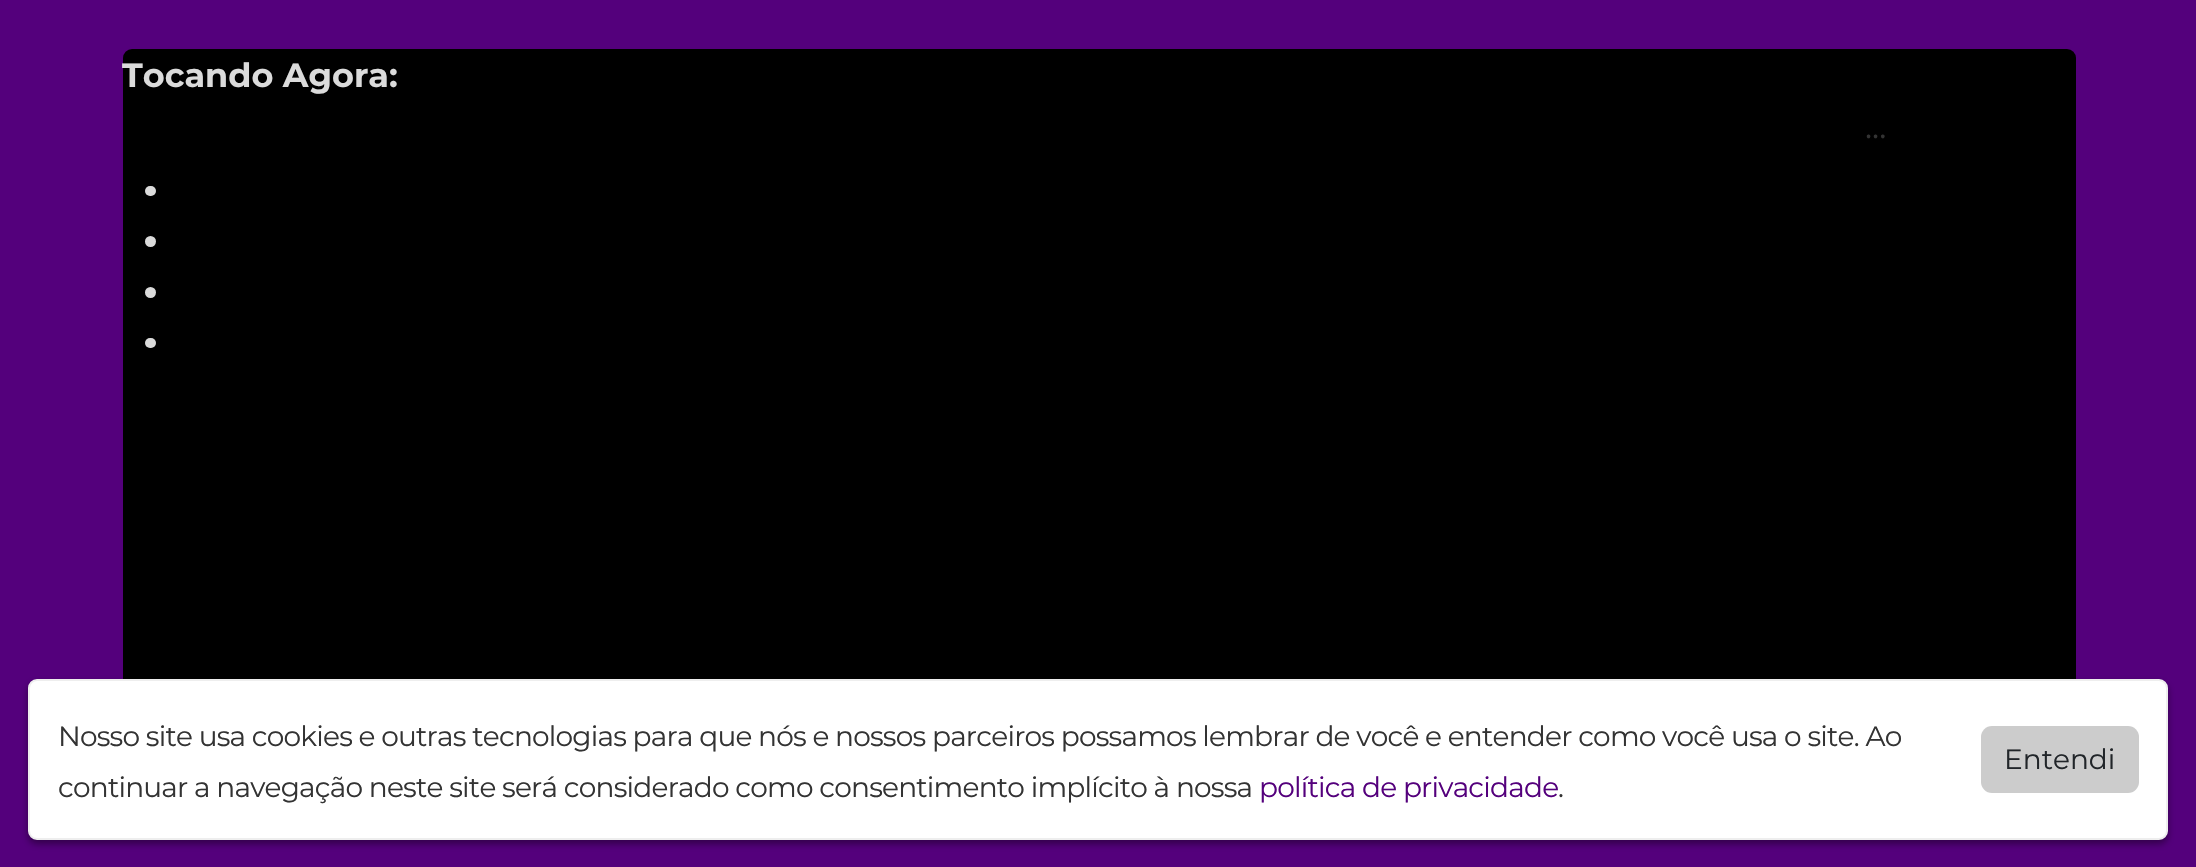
#include "include/core/SkBlurTypes.h"
#include "include/core/SkCanvas.h"
#include "include/core/SkData.h"
#include "include/core/SkFont.h"
#include "include/core/SkFontMgr.h"
#include "include/core/SkImage.h"
#include "include/core/SkMaskFilter.h"
#include "include/core/SkPaint.h"
#include "include/core/SkPathBuilder.h"
#include "include/core/SkTextBlob.h"
#include "include/effects/SkDashPathEffect.h"
#include "include/effects/SkGradientShader.h"
#include "include/utils/SkParsePath.h"

extern sk_sp<SkFontMgr> fontMgr;

static SkFont font(const char* family, int weight, float size, bool italic = false) {
    SkFontStyle style(weight, SkFontStyle::kNormal_Width,
        italic ? SkFontStyle::kItalic_Slant : SkFontStyle::kUpright_Slant);
    SkFont result(fontMgr->matchFamilyStyle(family, style), size);
    result.setSubpixel(true);
    return result;
}

static void drawLabel(SkCanvas* canvas, const char* s, float x, float y, const SkFont& font, SkColor color) {
    SkPaint ink(SkColor4f::FromColor(color));
    ink.setAntiAlias(true);
    canvas->drawString(s, x, y, font, ink);
}

static void drawTracked(SkCanvas* canvas, const char* s, float x, float y, const SkFont& font, const SkPaint& ink, float letter, float word) {
    std::vector<SkGlyphID> glyphs(font.countText(s, strlen(s), SkTextEncoding::kUTF8));
    std::vector<float> xs(glyphs.size());
    font.textToGlyphs(s, strlen(s), SkTextEncoding::kUTF8, glyphs);
    font.getXPos(glyphs, xs, x);
    float extra = 0;
    for (size_t i = 0; i < glyphs.size(); i++) {
        xs[i] += extra;
        extra += letter + word * (glyphs[i] == font.unicharToGlyph(' '));
    }
    canvas->drawTextBlob(SkTextBlob::MakeFromPosHGlyphs(glyphs, xs, y, font), 0, 0, ink);
}

static void fillRRect(SkCanvas* canvas, float x, float y, float w, float h, float radius, SkColor color) {
    SkPaint ink(SkColor4f::FromColor(color));
    ink.setAntiAlias(true);
    canvas->drawRoundRect(SkRect::MakeXYWH(x, y, w, h), radius, radius, ink);
}

void draw(SkCanvas* canvas) {
    SkPaint paint;
    paint.setAntiAlias(true);
    canvas->clear(0xFF54007C);
    fillRRect(canvas, 123, 49, 1953, 718, 9, 0xFF000000);
    SkFont font1 = font("Montserrat", 700, 33.5f);
    drawLabel(canvas, "Tocando Agora:", 122, 87, font1, 0xFFDBDBDB);
    SkFont font2 = font("Montserrat", 400, 33.5f);
    drawLabel(canvas, "...", 1865, 138, font2, 0xFF333333);
    fillRRect(canvas, 145, 186, 11, 10, 5, 0xFFDBDBDB);
    paint.setColor(0xFFDBDBDB);
    canvas->drawCircle(150.5f, 241.5f, 5.5f, paint);
    canvas->drawCircle(150.5f, 292.5f, 5.5f, paint);
    fillRRect(canvas, 145, 338, 11, 10, 5, 0xFFDBDBDB);
    paint.setColor(0x66000000);
    paint.setMaskFilter(SkMaskFilter::MakeBlur(kNormal_SkBlurStyle, 3.5f));
    canvas->drawRoundRect(SkRect::MakeXYWH(28, 683, 2140, 161), 9, 9, paint);
    paint.setMaskFilter(nullptr);
    paint.setColor(0xFFFFFFFF);
    canvas->drawRoundRect(SkRect::MakeXYWH(29, 680, 2138, 159), 8, 8, paint);
    paint.setStroke(true);
    paint.setStrokeWidth(2);
    paint.setColor(0xFFEEEEEE);
    canvas->drawRoundRect(SkRect::MakeXYWH(29, 680, 2138, 159), 8, 8, paint);
    SkFont font3 = font("Montserrat", 400, 28);
    paint.setStroke(false);
    paint.setColor(0xFF333333);
    drawTracked(canvas, "Nosso site usa cookies e outras tecnologias para que nós e nossos parceiros possamos lembrar de você e entender como você usa o site. Ao", 58, 746, font3, paint, -0.79f, 0);
    drawTracked(canvas, "continuar a navegação neste site será considerado como consentimento implícito à nossa", 58, 797, font3, paint, -0.79f, 0);
    paint.setColor(0xFF54007C);
    drawTracked(canvas, "política de privacidade", 1259, 797, font3, paint, -0.79f, 0);
    paint.setColor(0xFF333333);
    drawTracked(canvas, ".", 1558, 797, font3, paint, -0.79f, 0);
    fillRRect(canvas, 1981, 726, 158, 67, 11, 0xFFCCCCCC);
    drawLabel(canvas, "Entendi", 2004, 769, font3, 0xFF212529);
}
